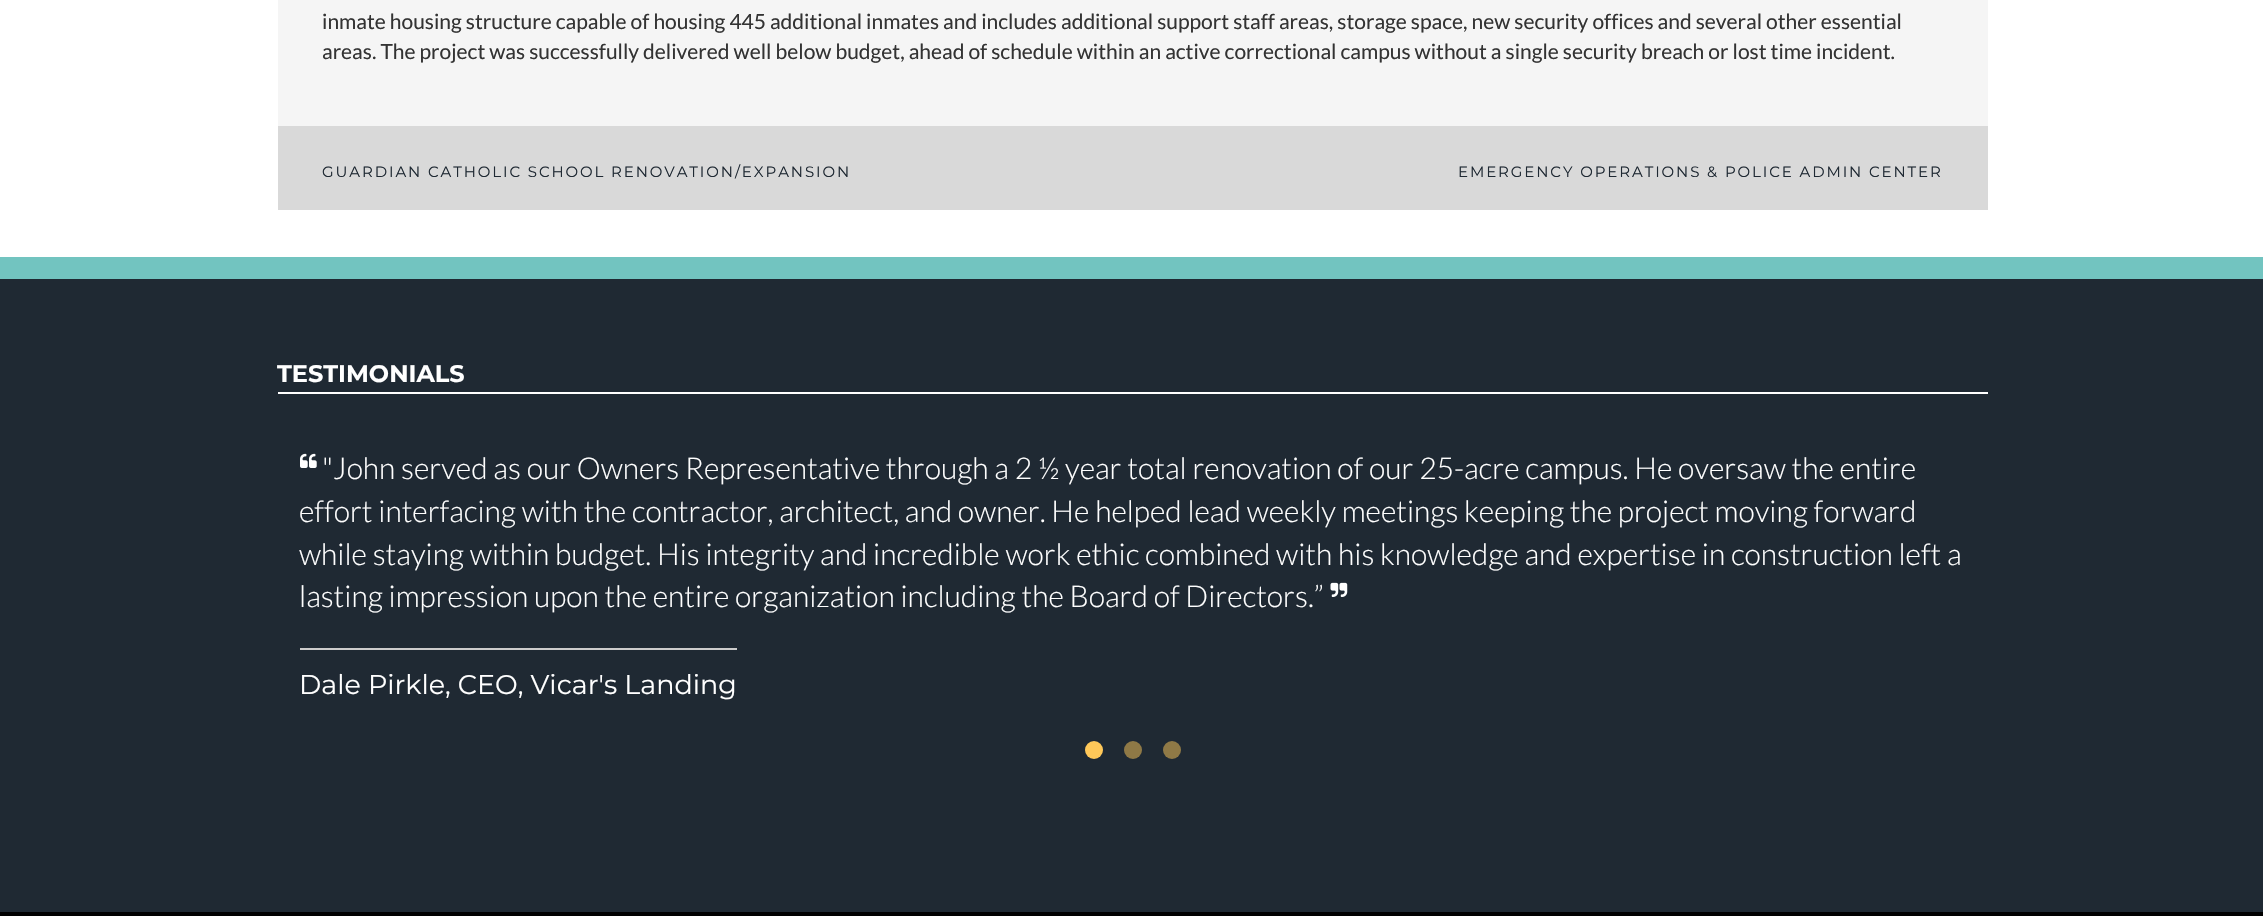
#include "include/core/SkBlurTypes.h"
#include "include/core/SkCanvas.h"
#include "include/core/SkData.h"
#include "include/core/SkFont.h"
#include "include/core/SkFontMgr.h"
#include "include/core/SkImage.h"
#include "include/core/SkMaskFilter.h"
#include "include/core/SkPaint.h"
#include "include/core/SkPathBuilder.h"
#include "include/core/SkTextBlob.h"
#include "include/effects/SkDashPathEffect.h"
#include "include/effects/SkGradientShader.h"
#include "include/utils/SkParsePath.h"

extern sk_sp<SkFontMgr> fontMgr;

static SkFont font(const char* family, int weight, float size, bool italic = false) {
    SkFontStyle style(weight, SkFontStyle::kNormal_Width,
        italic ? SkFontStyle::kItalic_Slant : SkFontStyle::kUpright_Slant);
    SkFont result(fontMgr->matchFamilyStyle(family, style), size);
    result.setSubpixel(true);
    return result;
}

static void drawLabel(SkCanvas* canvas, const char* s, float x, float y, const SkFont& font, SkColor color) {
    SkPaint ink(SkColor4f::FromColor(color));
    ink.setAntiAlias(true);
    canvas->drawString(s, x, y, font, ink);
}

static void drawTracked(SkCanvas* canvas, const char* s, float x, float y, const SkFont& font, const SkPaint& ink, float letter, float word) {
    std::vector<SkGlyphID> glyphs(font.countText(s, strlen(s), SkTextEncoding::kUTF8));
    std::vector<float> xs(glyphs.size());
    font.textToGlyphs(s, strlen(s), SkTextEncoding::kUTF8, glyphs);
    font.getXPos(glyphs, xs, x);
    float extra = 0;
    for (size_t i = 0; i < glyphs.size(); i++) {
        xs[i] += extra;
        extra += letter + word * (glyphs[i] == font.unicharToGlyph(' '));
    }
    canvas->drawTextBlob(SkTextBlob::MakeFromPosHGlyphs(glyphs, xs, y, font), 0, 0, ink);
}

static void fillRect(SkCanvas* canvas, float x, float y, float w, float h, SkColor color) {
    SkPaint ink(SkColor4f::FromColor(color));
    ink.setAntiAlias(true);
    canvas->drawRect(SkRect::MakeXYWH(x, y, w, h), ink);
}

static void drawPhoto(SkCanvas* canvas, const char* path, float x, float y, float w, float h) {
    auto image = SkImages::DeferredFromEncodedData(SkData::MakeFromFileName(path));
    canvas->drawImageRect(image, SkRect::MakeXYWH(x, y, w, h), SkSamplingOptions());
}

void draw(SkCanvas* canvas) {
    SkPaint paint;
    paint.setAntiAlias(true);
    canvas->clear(0xFFFFFFFF);
    fillRect(canvas, 278, 0, 1710, 126, 0xFFF5F5F5);
    SkFont font1 = font("Lato", 400, 21);
    drawLabel(canvas, "inmate housing structure capable of housing 445 additional inmates and includes additional support staff areas, storage space, new security offices and several other essential", 322, 29, font1, 0xFF333333);
    drawLabel(canvas, "areas. The project was successfully delivered well below budget, ahead of schedule within an active correctional campus without a single security breach or lost time incident.", 322, 59, font1, 0xFF333333);
    fillRect(canvas, 278, 126, 1710, 84, 0xFFD9D9D9);
    SkFont font2 = font("Montserrat", 400, 15);
    paint.setColor(0xFF1F2933);
    drawTracked(canvas, "GUARDIAN CATHOLIC SCHOOL RENOVATION/EXPANSION", 322, 177, font2, paint, 1.9f, 0);
    drawTracked(canvas, "EMERGENCY OPERATIONS & POLICE ADMIN CENTER", 1458, 177, font2, paint, 1.9f, 0);
    fillRect(canvas, 0, 279, 2263, 633, 0xFF1F2933);
    fillRect(canvas, 0, 257, 2263, 22, 0xFF72C4C0);
    fillRect(canvas, 278, 392, 1710, 2, 0xFFFFFFFF);
    SkFont font3 = font("Montserrat", 700, 24);
    drawLabel(canvas, "TESTIMONIALS", 277, 382, font3, 0xFFFFFFFF);
    drawPhoto(canvas, "assets/img1.png", 300, 453, 17, 15);
    SkFont font4 = font("Lato", 300, 30);
    drawLabel(canvas, "\"John served as our Owners Representative through a 2 ½ year total renovation of our 25-acre campus. He oversaw the entire", 322, 479, font4, 0xFFFFFFFF);
    drawLabel(canvas, "effort interfacing with the contractor, architect, and owner. He helped lead weekly meetings keeping the project moving forward", 299, 522, font4, 0xFFFFFFFF);
    drawLabel(canvas, "while staying within budget. His integrity and incredible work ethic combined with his knowledge and expertise in construction left a", 299, 565, font4, 0xFFFFFFFF);
    drawLabel(canvas, "lasting impression upon the entire organization including the Board of Directors.”", 299, 607, font4, 0xFFFFFFFF);
    drawPhoto(canvas, "assets/img2.png", 1330, 582, 18, 15);
    fillRect(canvas, 300, 648, 437, 2, 0xFFCCCCCC);
    SkFont font5 = font("Montserrat", 400, 27);
    drawLabel(canvas, "Dale Pirkle, CEO, Vicar's Landing", 299, 694, font5, 0xFFFFFFFF);
    paint.setColor(0xFFFFC859);
    canvas->drawCircle(1094, 750, 9, paint);
    paint.setColor(0xFF8F7946);
    canvas->drawCircle(1133, 750, 9, paint);
    canvas->drawCircle(1172, 750, 9, paint);
    fillRect(canvas, 0, 912, 2263, 4, 0xFF000000);
}
